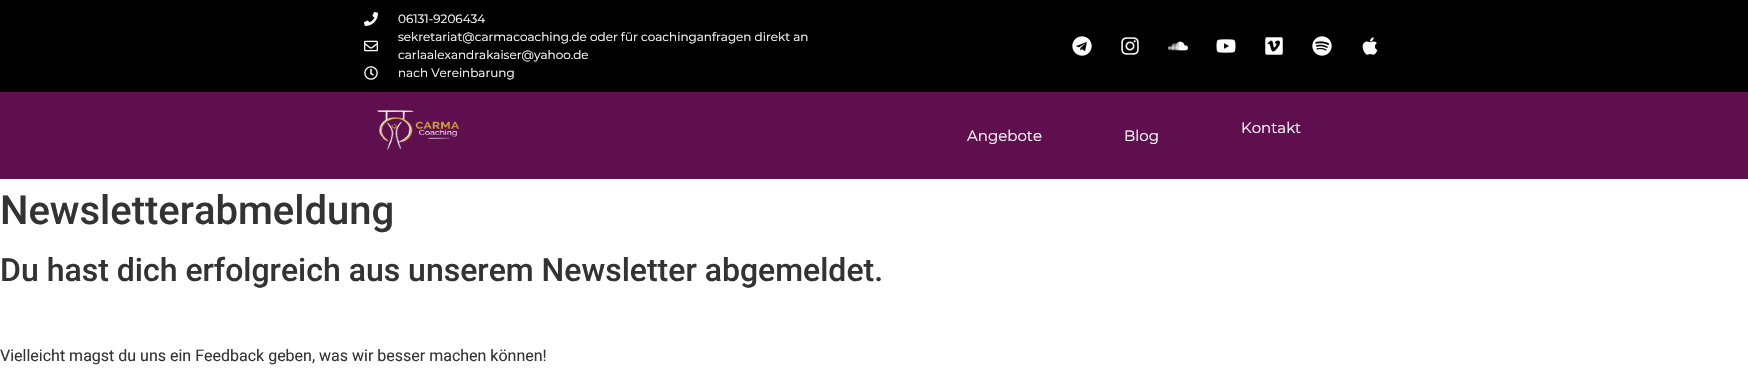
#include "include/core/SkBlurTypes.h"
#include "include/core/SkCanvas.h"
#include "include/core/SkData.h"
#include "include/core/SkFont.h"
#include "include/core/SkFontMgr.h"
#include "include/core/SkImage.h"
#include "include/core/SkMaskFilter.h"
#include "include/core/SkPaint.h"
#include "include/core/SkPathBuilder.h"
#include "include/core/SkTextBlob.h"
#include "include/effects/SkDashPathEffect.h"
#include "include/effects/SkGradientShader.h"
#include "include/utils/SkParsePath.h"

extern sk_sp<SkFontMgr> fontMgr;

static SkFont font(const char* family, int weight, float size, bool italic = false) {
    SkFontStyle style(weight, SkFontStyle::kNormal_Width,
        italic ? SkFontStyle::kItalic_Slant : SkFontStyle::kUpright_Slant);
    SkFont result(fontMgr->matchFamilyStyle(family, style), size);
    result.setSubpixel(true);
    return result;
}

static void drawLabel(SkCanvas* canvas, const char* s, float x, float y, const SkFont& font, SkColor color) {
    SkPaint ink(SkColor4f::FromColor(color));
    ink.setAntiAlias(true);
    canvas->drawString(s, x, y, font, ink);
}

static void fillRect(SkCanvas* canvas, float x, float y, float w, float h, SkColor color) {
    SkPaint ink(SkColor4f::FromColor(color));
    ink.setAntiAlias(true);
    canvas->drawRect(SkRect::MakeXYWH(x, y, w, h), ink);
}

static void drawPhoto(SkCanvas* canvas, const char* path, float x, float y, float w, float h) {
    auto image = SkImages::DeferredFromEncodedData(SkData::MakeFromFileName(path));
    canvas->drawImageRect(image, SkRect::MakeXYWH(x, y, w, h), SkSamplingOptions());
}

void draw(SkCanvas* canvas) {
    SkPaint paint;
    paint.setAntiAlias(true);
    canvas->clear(0xFFFFFFFF);
    fillRect(canvas, 0, 0, 1748, 92, 0xFF000000);
    drawPhoto(canvas, "assets/img1.png", 364, 12, 14, 14);
    SkFont font1 = font("Montserrat", 400, 12);
    drawLabel(canvas, "06131-9206434", 398, 23, font1, 0xFFFFFFFF);
    drawPhoto(canvas, "assets/img2.png", 364, 40, 14, 12);
    drawLabel(canvas, "sekretariat@carmacoaching.de oder für coachinganfragen direkt an", 398, 41, font1, 0xFFFFFFFF);
    drawLabel(canvas, "carlaalexandrakaiser@yahoo.de", 398, 59, font1, 0xFFFFFFFF);
    drawPhoto(canvas, "assets/img3.png", 364, 66, 14, 14);
    drawLabel(canvas, "nach Vereinbarung", 398, 77, font1, 0xFFFFFFFF);
    drawPhoto(canvas, "assets/img4.png", 1072, 36, 20, 20);
    drawPhoto(canvas, "assets/img5.png", 1121, 37, 18, 18);
    drawPhoto(canvas, "assets/img6.png", 1168, 41, 20, 10);
    drawPhoto(canvas, "assets/img7.png", 1216, 39, 20, 14);
    drawPhoto(canvas, "assets/img8.png", 1265, 37, 18, 18);
    drawPhoto(canvas, "assets/img9.png", 1312, 36, 20, 20);
    drawPhoto(canvas, "assets/img10.png", 1362, 37, 16, 18);
    fillRect(canvas, 0, 92, 1748, 87, 0xFF5F0F4E);
    drawPhoto(canvas, "assets/img11.png", 376, 110, 83, 40);
    SkFont font2 = font("Montserrat", 400, 15);
    drawLabel(canvas, "Kontakt", 1241, 133, font2, 0xFFFFFFFF);
    drawLabel(canvas, "Angebote", 967, 141, font2, 0xFFFFFFFF);
    drawLabel(canvas, "Blog", 1124, 141, font2, 0xFFFFFFFF);
    SkFont font3 = font("Roboto", 500, 40);
    drawLabel(canvas, "Newsletterabmeldung", 0, 224, font3, 0xFF333333);
    SkFont font4 = font("Roboto", 500, 32);
    drawLabel(canvas, "Du hast dich erfolgreich aus unserem Newsletter abgemeldet.", 0, 281, font4, 0xFF333333);
    SkFont font5 = font("Roboto", 400, 16);
    drawLabel(canvas, "Vielleicht magst du uns ein Feedback geben, was wir besser machen können!", 0, 361, font5, 0xFF333333);
}
